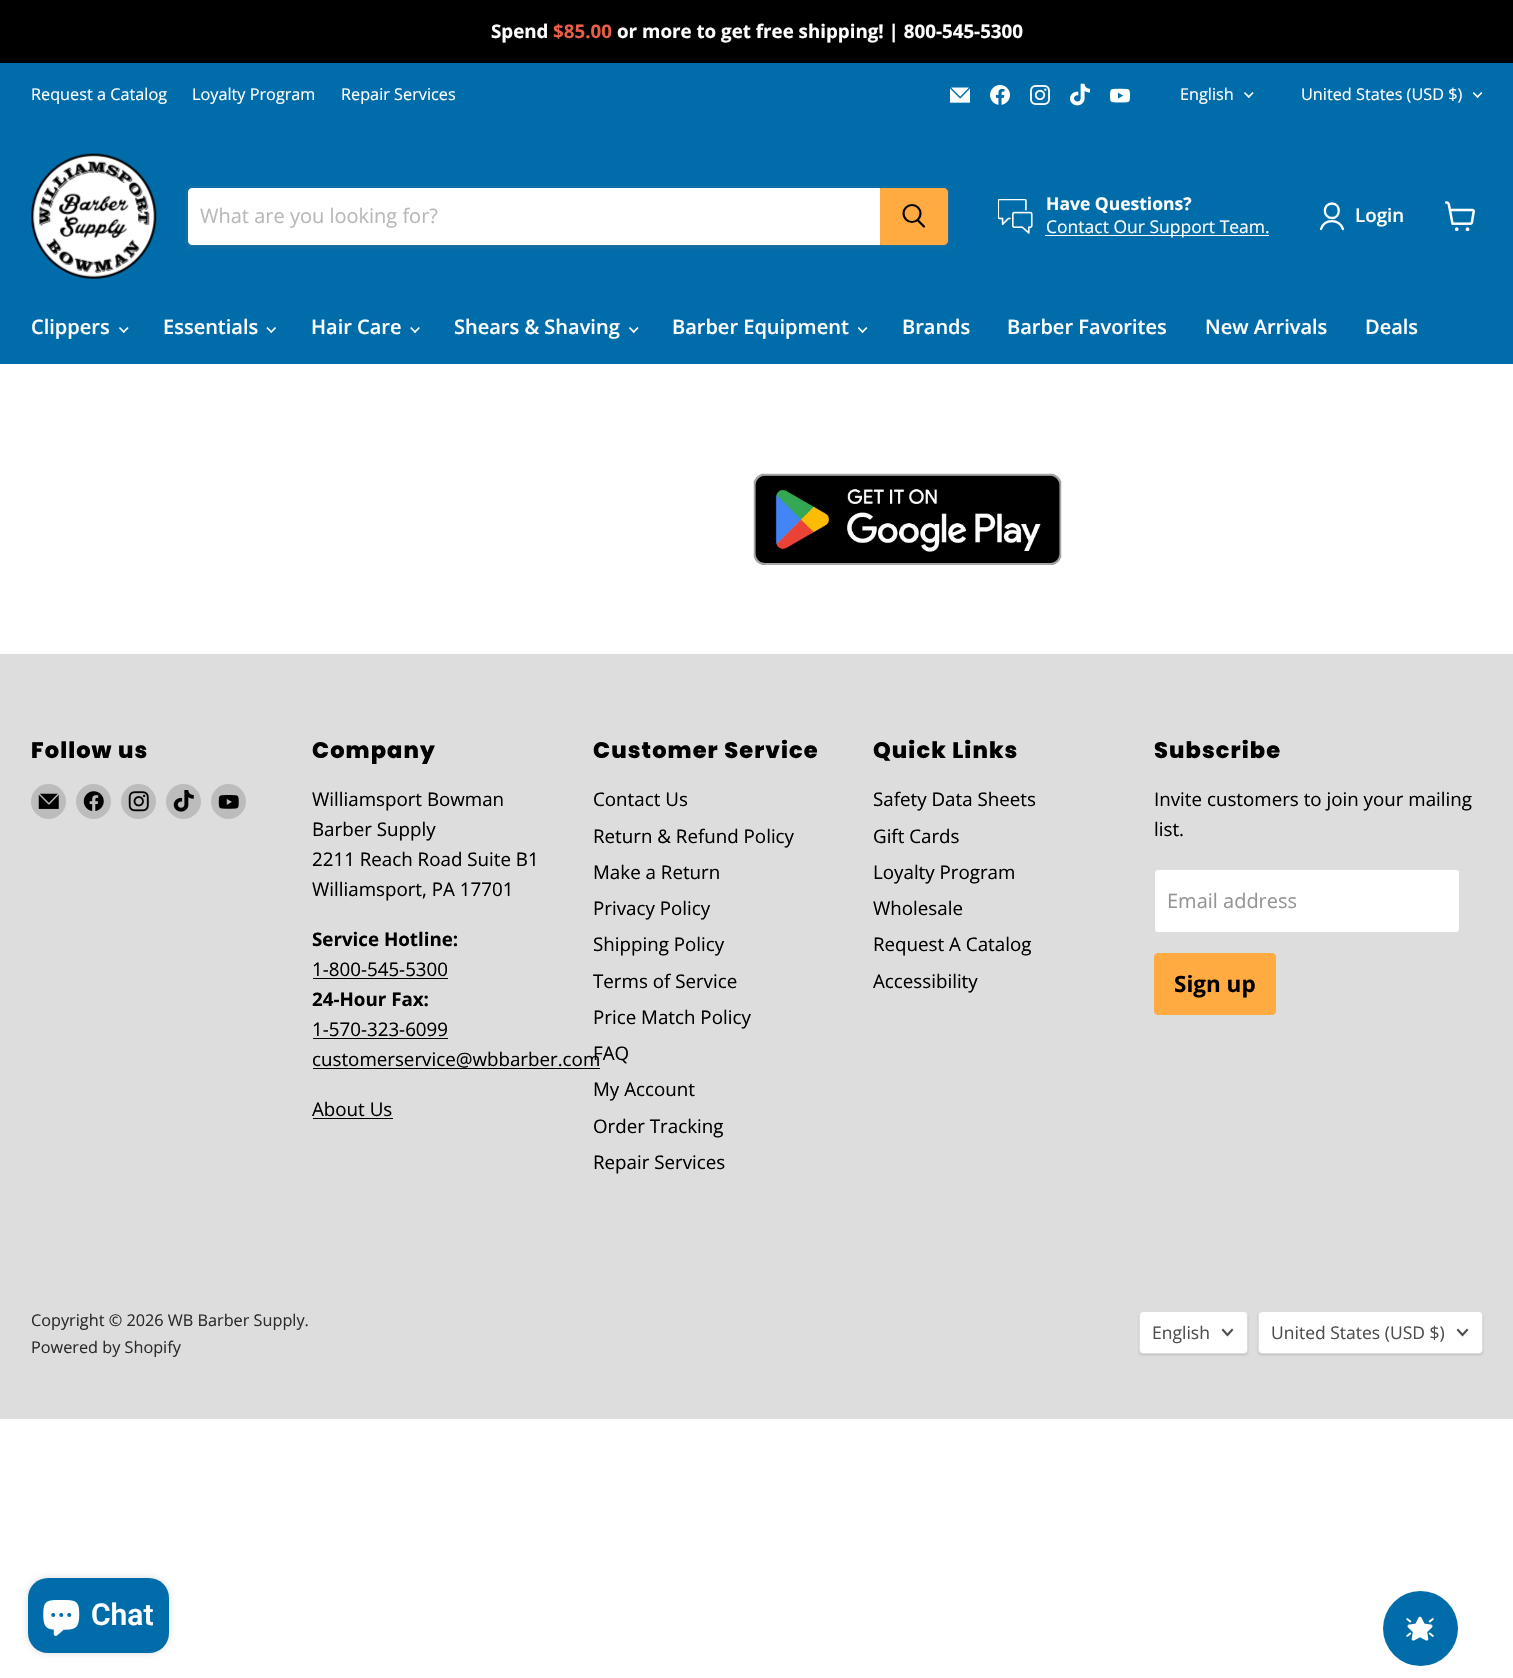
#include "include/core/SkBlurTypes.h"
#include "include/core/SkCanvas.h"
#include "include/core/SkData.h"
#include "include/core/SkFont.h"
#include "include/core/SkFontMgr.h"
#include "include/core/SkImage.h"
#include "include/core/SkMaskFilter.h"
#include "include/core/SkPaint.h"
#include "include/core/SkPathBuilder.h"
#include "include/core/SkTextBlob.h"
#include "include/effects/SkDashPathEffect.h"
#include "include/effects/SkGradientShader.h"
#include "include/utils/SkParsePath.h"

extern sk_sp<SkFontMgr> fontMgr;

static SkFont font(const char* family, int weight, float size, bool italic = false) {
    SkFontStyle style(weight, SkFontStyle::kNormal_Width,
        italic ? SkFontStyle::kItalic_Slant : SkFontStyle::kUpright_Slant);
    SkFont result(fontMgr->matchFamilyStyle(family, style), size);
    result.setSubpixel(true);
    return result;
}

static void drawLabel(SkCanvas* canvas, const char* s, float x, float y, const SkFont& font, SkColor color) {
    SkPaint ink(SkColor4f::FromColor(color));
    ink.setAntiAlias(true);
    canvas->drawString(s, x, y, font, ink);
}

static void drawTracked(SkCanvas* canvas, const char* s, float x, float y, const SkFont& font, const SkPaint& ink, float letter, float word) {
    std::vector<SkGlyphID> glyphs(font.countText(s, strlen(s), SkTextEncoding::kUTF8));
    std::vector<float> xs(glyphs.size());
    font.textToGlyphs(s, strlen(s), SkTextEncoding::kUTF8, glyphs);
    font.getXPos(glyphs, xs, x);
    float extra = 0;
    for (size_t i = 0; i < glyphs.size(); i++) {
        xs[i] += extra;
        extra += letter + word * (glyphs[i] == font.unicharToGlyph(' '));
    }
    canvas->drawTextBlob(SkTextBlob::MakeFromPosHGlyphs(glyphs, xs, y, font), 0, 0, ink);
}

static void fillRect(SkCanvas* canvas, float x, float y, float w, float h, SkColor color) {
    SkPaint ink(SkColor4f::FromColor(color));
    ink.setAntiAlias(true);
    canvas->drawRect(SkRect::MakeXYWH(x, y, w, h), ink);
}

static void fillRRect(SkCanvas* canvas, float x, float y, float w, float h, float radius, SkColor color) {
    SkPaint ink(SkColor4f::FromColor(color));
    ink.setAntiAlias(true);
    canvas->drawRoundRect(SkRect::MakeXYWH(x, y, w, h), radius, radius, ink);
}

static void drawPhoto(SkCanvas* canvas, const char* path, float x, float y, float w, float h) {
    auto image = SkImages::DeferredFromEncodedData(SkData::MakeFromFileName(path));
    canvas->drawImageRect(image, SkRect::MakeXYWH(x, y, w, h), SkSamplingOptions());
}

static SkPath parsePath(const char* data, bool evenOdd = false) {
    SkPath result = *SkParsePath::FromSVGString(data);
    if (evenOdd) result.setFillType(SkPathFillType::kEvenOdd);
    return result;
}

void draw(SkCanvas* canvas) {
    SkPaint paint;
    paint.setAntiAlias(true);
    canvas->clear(0xFFFFFFFF);
    fillRect(canvas, 0, 0, 1513, 63, 0xFF000000);
    SkFont font1 = font("Open Sans", 700, 18.75f);
    drawLabel(canvas, "Spend", 491, 38, font1, 0xFFFFFFFF);
    drawLabel(canvas, "$85.00", 553, 38, font1, 0xFFE95E46);
    drawLabel(canvas, "or more to get free shipping! | 800-545-5300", 617, 38, font1, 0xFFFFFFFF);
    fillRect(canvas, 0, 63, 1513, 301, 0xFF006CAA);
    SkFont font2 = font("Open Sans", 400, 16.25f);
    drawLabel(canvas, "Request a Catalog", 31, 100, font2, 0xFFFFFFFF);
    drawLabel(canvas, "Loyalty Program", 192, 100, font2, 0xFFFFFFFF);
    drawLabel(canvas, "Repair Services", 341, 100, font2, 0xFFFFFFFF);
    drawPhoto(canvas, "assets/img1.png", 950, 87, 20, 16);
    drawPhoto(canvas, "assets/img2.png", 990, 85, 20, 20);
    drawPhoto(canvas, "assets/img3.png", 1030, 85, 20, 20);
    drawPhoto(canvas, "assets/img4.png", 1070, 83, 20, 23);
    drawPhoto(canvas, "assets/img5.png", 1110, 88, 20, 15);
    drawLabel(canvas, "English", 1180, 100, font2, 0xFFFFFFFF);
    drawPhoto(canvas, "assets/img6.png", 1244, 92, 10, 6);
    drawLabel(canvas, "United States (USD $)", 1301, 100, font2, 0xFFFFFFFF);
    drawPhoto(canvas, "assets/img7.png", 1473, 92, 10, 6);
    drawPhoto(canvas, "assets/img8.png", 31, 153, 126, 126);
    canvas->save();
    canvas->clipPath(parsePath("M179 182H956V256H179ZM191 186H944C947 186 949 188 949 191V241C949 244 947 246 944 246H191C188 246 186 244 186 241V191C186 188 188 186 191 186Z", true), true);
    paint.setColor(0x1C808080);
    paint.setMaskFilter(SkMaskFilter::MakeBlur(kNormal_SkBlurStyle, 2));
    canvas->drawRoundRect(SkRect::MakeXYWH(186, 189, 763, 60), 5, 5, paint);
    paint.setMaskFilter(nullptr);
    canvas->restore();
    paint.setStroke(true);
    paint.setStrokeWidth(1);
    paint.setColor(0x33808080);
    canvas->drawRoundRect(SkRect::MakeXYWH(186.5f, 186.5f, 762, 59), 4.5f, 4.5f, paint);
    paint.setStroke(false);
    paint.setColor(0xFFFFFFFF);
    canvas->drawPath(parsePath("M192 188H880V245H192C190 245 188 243 188 241V192C188 190 190 188 192 188Z"), paint);
    SkFont font3 = font("Open Sans", 400, 20);
    drawLabel(canvas, "What are you looking for?", 200, 223, font3, 0xFFB8B8B8);
    paint.setColor(0xFFFFAB41);
    canvas->drawPath(parsePath("M880.5 188.5H944C946 188.5 947.5 190 947.5 192V241C947.5 243 946 244.5 944 244.5H880.5Z"), paint);
    paint.setStroke(true);
    canvas->drawPath(parsePath("M880.5 188.5H944C946 188.5 947.5 190 947.5 192V241C947.5 243 946 244.5 944 244.5H880.5Z"), paint);
    paint.setStrokeWidth(2.2f);
    paint.setStrokeCap(SkPaint::kRound_Cap);
    paint.setColor(0xFF000000);
    canvas->drawPath(parsePath("M924 226.5L918 220.5"), paint);
    paint.setStrokeCap(SkPaint::kButt_Cap);
    canvas->drawCircle(912, 213.5f, 8.5f, paint);
    drawPhoto(canvas, "assets/img9.png", 998, 199, 35, 35);
    SkFont font4 = font("Open Sans", 700, 17.5f);
    drawLabel(canvas, "Have Questions?", 1046, 210, font4, 0xFFFFFFFF);
    fillRect(canvas, 1045, 235, 224, 1, 0xFFFFFFFF);
    SkFont font5 = font("Open Sans", 400, 17.5f);
    drawLabel(canvas, "Contact Our Support Team.", 1046, 233, font5, 0xFFFFFFFF);
    paint.setStrokeWidth(2.3f);
    paint.setStrokeCap(SkPaint::kRound_Cap);
    paint.setStrokeJoin(SkPaint::kRound_Join);
    paint.setColor(0xFFFFFFFF);
    canvas->drawPath(parsePath("M1332 218C1341 218 1341 203.5 1332 203.5C1322.5 203.5 1322.5 218 1332 218ZM1343 229C1339 218.5 1324.5 218.5 1321 229"), paint);
    SkFont font6 = font("Open Sans", 600, 18.75f);
    drawLabel(canvas, "Login", 1355, 222, font6, 0xFFFFFFFF);
    drawPhoto(canvas, "assets/img10.png", 1445, 201, 30, 30);
    SkFont font7 = font("Open Sans", 600, 20);
    drawLabel(canvas, "Clippers", 31, 334, font7, 0xFFFFFFFF);
    drawPhoto(canvas, "assets/img6.png", 119, 327, 10, 6);
    drawLabel(canvas, "Essentials", 163, 334, font7, 0xFFFFFFFF);
    drawPhoto(canvas, "assets/img11.png", 266, 327, 10, 6);
    drawLabel(canvas, "Hair Care", 311, 334, font7, 0xFFFFFFFF);
    drawPhoto(canvas, "assets/img12.png", 410, 327, 10, 6);
    drawLabel(canvas, "Shears & Shaving", 454, 334, font7, 0xFFFFFFFF);
    drawPhoto(canvas, "assets/img6.png", 629, 327, 10, 6);
    drawLabel(canvas, "Barber Equipment", 672, 334, font7, 0xFFFFFFFF);
    drawPhoto(canvas, "assets/img7.png", 858, 327, 10, 6);
    drawLabel(canvas, "Brands", 902, 334, font7, 0xFFFFFFFF);
    drawLabel(canvas, "Barber Favorites", 1007, 334, font7, 0xFFFFFFFF);
    drawLabel(canvas, "New Arrivals", 1205, 334, font7, 0xFFFFFFFF);
    drawLabel(canvas, "Deals", 1365, 334, font7, 0xFFFFFFFF);
    drawPhoto(canvas, "assets/img13.png", 753, 473, 309, 92);
    fillRect(canvas, 0, 654, 1513, 765, 0xFFDDDDDD);
    SkFont font8 = font("Poppins", 800, 22.5f);
    paint.setStroke(false);
    paint.setColor(0xFF000000);
    drawTracked(canvas, "Follow us", 31, 758, font8, paint, 1.1f, 0);
    paint.setColor(0xFFBCBCBC);
    canvas->drawCircle(48.5f, 801.5f, 17.5f, paint);
    drawPhoto(canvas, "assets/img14.png", 38, 793, 21, 16);
    canvas->drawCircle(93.5f, 801.5f, 17.5f, paint);
    drawPhoto(canvas, "assets/img15.png", 83, 791, 21, 20);
    canvas->drawCircle(138.5f, 801.5f, 17.5f, paint);
    drawPhoto(canvas, "assets/img16.png", 128, 791, 21, 21);
    canvas->drawCircle(183.5f, 801.5f, 17.5f, paint);
    drawPhoto(canvas, "assets/img17.png", 173, 790, 21, 22);
    canvas->drawCircle(228.5f, 801.5f, 17.5f, paint);
    drawPhoto(canvas, "assets/img18.png", 218, 795, 21, 14);
    paint.setColor(0xFF000000);
    drawTracked(canvas, "Company", 312, 758, font8, paint, 1.1f, 0);
    SkFont font9 = font("Open Sans", 400, 18.75f);
    drawLabel(canvas, "Williamsport Bowman", 312, 806, font9, 0xFF000000);
    drawLabel(canvas, "Barber Supply", 312, 836, font9, 0xFF000000);
    drawLabel(canvas, "2211 Reach Road Suite B1", 312, 866, font9, 0xFF000000);
    drawLabel(canvas, "Williamsport, PA 17701", 312, 896, font9, 0xFF000000);
    drawLabel(canvas, "Service Hotline:", 312, 946, font1, 0xFF000000);
    drawLabel(canvas, "1-800-545-5300", 312, 976, font9, 0xFF000000);
    fillRect(canvas, 313, 978, 135, 1, 0xFF000000);
    drawLabel(canvas, "24-Hour Fax:", 312, 1006, font1, 0xFF000000);
    drawLabel(canvas, "1-570-323-6099", 312, 1036, font9, 0xFF000000);
    fillRect(canvas, 313, 1038, 135, 1, 0xFF000000);
    drawLabel(canvas, "customerservice@wbbarber.com", 312, 1066, font9, 0xFF000000);
    fillRect(canvas, 313, 1068, 287, 1, 0xFF000000);
    drawLabel(canvas, "About Us", 312, 1116, font9, 0xFF000000);
    fillRect(canvas, 313, 1118, 80, 1, 0xFF000000);
    drawTracked(canvas, "Customer Service", 593, 758, font8, paint, 1.1f, 0);
    drawLabel(canvas, "Contact Us", 593, 806, font9, 0xFF000000);
    drawLabel(canvas, "Return & Refund Policy", 593, 843, font9, 0xFF000000);
    drawLabel(canvas, "Make a Return", 593, 879, font9, 0xFF000000);
    drawLabel(canvas, "Privacy Policy", 593, 915, font9, 0xFF000000);
    drawLabel(canvas, "Shipping Policy", 593, 951, font9, 0xFF000000);
    drawLabel(canvas, "Terms of Service", 593, 988, font9, 0xFF000000);
    drawLabel(canvas, "Price Match Policy", 593, 1024, font9, 0xFF000000);
    drawLabel(canvas, "FAQ", 593, 1060, font9, 0xFF000000);
    drawLabel(canvas, "My Account", 593, 1096, font9, 0xFF000000);
    drawLabel(canvas, "Order Tracking", 593, 1133, font9, 0xFF000000);
    drawLabel(canvas, "Repair Services", 593, 1169, font9, 0xFF000000);
    drawTracked(canvas, "Quick Links", 873, 758, font8, paint, 1.1f, 0);
    drawLabel(canvas, "Safety Data Sheets", 873, 806, font9, 0xFF000000);
    drawLabel(canvas, "Gift Cards", 873, 843, font9, 0xFF000000);
    drawLabel(canvas, "Loyalty Program", 873, 879, font9, 0xFF000000);
    drawLabel(canvas, "Wholesale", 873, 915, font9, 0xFF000000);
    drawLabel(canvas, "Request A Catalog", 873, 951, font9, 0xFF000000);
    drawLabel(canvas, "Accessibility", 873, 988, font9, 0xFF000000);
    drawTracked(canvas, "Subscribe", 1154, 758, font8, paint, 1.1f, 0);
    drawLabel(canvas, "Invite customers to join your mailing", 1154, 806, font9, 0xFF000000);
    drawLabel(canvas, "list.", 1154, 836, font9, 0xFF000000);
    paint.setColor(0xFFFFFFFF);
    canvas->drawRoundRect(SkRect::MakeXYWH(1154.5f, 869.5f, 305, 63), 3.5f, 3.5f, paint);
    paint.setStroke(true);
    paint.setStrokeWidth(1);
    paint.setStrokeCap(SkPaint::kButt_Cap);
    paint.setStrokeJoin(SkPaint::kMiter_Join);
    paint.setColor(0xFFDDDDDD);
    canvas->drawRoundRect(SkRect::MakeXYWH(1154.5f, 869.5f, 305, 63), 3.5f, 3.5f, paint);
    drawLabel(canvas, "Email address", 1167, 908, font3, 0xFF949494);
    paint.setStroke(false);
    paint.setColor(0xFFFFAB41);
    canvas->drawRoundRect(SkRect::MakeXYWH(1154.5f, 953.5f, 121, 61), 3.5f, 3.5f, paint);
    paint.setStroke(true);
    canvas->drawRoundRect(SkRect::MakeXYWH(1154.5f, 953.5f, 121, 61), 3.5f, 3.5f, paint);
    SkFont font10 = font("Open Sans", 700, 22.5f);
    drawLabel(canvas, "Sign up", 1174, 992, font10, 0xFF000000);
    drawLabel(canvas, "Copyright © 2026 WB Barber Supply.", 31, 1326, font2, 0xFF2C2C2C);
    drawLabel(canvas, "Powered by Shopify", 31, 1353, font2, 0xFF2C2C2C);
    paint.setStroke(false);
    paint.setColor(0x26000000);
    paint.setMaskFilter(SkMaskFilter::MakeBlur(kNormal_SkBlurStyle, 1));
    canvas->drawRoundRect(SkRect::MakeXYWH(1139, 1313, 109, 42), 4, 4, paint);
    paint.setMaskFilter(nullptr);
    paint.setColor(0xFFFFFFFF);
    canvas->drawRoundRect(SkRect::MakeXYWH(1139.5f, 1311.5f, 108, 42), 3.5f, 3.5f, paint);
    paint.setStroke(true);
    paint.setColor(0xFFDDDDDD);
    canvas->drawRoundRect(SkRect::MakeXYWH(1139.5f, 1311.5f, 108, 42), 3.5f, 3.5f, paint);
    drawLabel(canvas, "English", 1152, 1339, font5, 0xFF4D4D4D);
    paint.setStrokeWidth(2);
    paint.setStrokeCap(SkPaint::kSquare_Cap);
    paint.setColor(0xFF4D4D4D);
    canvas->drawPath(parsePath("M1227.5 1335L1232 1330M1227.5 1335L1223 1330"), paint);
    paint.setStroke(false);
    paint.setColor(0x26000000);
    paint.setMaskFilter(SkMaskFilter::MakeBlur(kNormal_SkBlurStyle, 1));
    canvas->drawRoundRect(SkRect::MakeXYWH(1258, 1313, 225, 42), 4, 4, paint);
    paint.setMaskFilter(nullptr);
    paint.setColor(0xFFFFFFFF);
    canvas->drawRoundRect(SkRect::MakeXYWH(1258.5f, 1311.5f, 224, 42), 3.5f, 3.5f, paint);
    paint.setStroke(true);
    paint.setStrokeWidth(1);
    paint.setStrokeCap(SkPaint::kButt_Cap);
    paint.setColor(0xFFDDDDDD);
    canvas->drawRoundRect(SkRect::MakeXYWH(1258.5f, 1311.5f, 224, 42), 3.5f, 3.5f, paint);
    drawLabel(canvas, "United States (USD $)", 1271, 1339, font5, 0xFF4D4D4D);
    paint.setStrokeWidth(2);
    paint.setStrokeCap(SkPaint::kSquare_Cap);
    paint.setColor(0xFF4D4D4D);
    canvas->drawPath(parsePath("M1462.5 1335L1467 1330M1462.5 1335L1458 1330"), paint);
    paint.setStroke(false);
    paint.setColor(0x26000000);
    paint.setMaskFilter(SkMaskFilter::MakeBlur(kNormal_SkBlurStyle, 3));
    canvas->drawRoundRect(SkRect::MakeXYWH(28, 1578, 141, 75), 20, 20, paint);
    paint.setMaskFilter(nullptr);
    fillRRect(canvas, 28, 1578, 141, 75, 20, 0xFF006CAA);
    drawPhoto(canvas, "assets/img19.png", 43, 1600, 37, 36);
    SkFont font11 = font("Roboto", 600, 30);
    drawLabel(canvas, "Chat", 91, 1625, font11, 0xFFFFFFFF);
    paint.setColor(0xFF006CAA);
    canvas->drawCircle(1420.5f, 1628.5f, 37.5f, paint);
    drawPhoto(canvas, "assets/img20.png", 1406, 1616, 28, 25);
}
